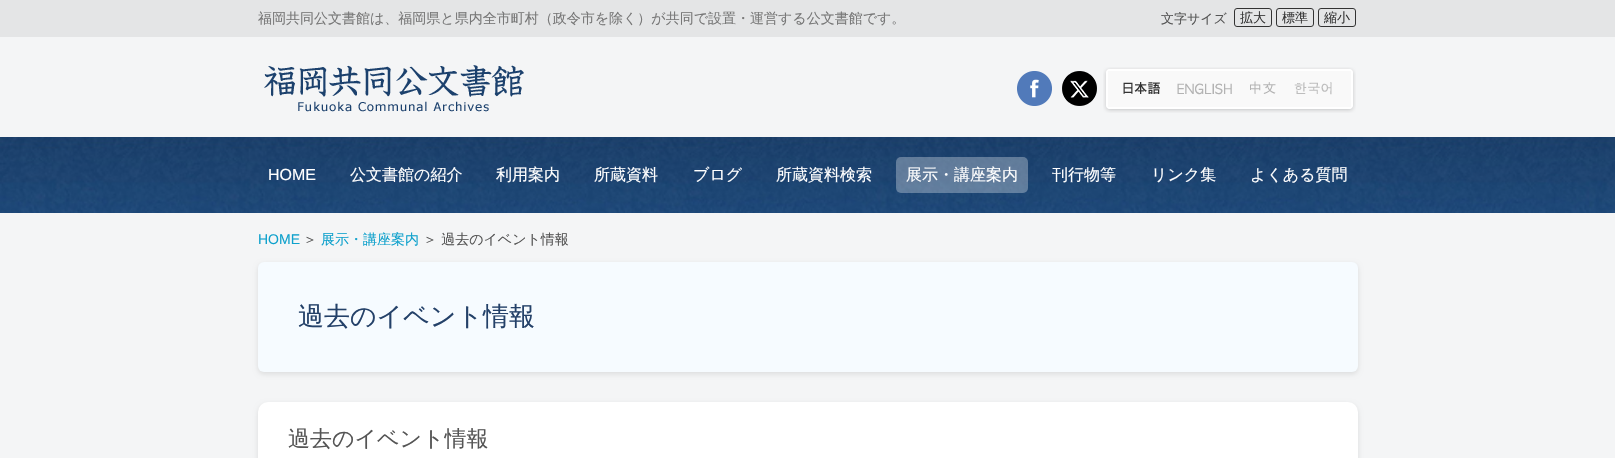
#include "include/core/SkBlurTypes.h"
#include "include/core/SkCanvas.h"
#include "include/core/SkData.h"
#include "include/core/SkFont.h"
#include "include/core/SkFontMgr.h"
#include "include/core/SkImage.h"
#include "include/core/SkMaskFilter.h"
#include "include/core/SkPaint.h"
#include "include/core/SkPathBuilder.h"
#include "include/core/SkTextBlob.h"
#include "include/effects/SkDashPathEffect.h"
#include "include/effects/SkGradientShader.h"
#include "include/utils/SkParsePath.h"

extern sk_sp<SkFontMgr> fontMgr;

static SkFont font(const char* family, int weight, float size, bool italic = false) {
    SkFontStyle style(weight, SkFontStyle::kNormal_Width,
        italic ? SkFontStyle::kItalic_Slant : SkFontStyle::kUpright_Slant);
    SkFont result(fontMgr->matchFamilyStyle(family, style), size);
    result.setSubpixel(true);
    return result;
}

static void drawLabel(SkCanvas* canvas, const char* s, float x, float y, const SkFont& font, SkColor color) {
    SkPaint ink(SkColor4f::FromColor(color));
    ink.setAntiAlias(true);
    canvas->drawString(s, x, y, font, ink);
}

static void fillRect(SkCanvas* canvas, float x, float y, float w, float h, SkColor color) {
    SkPaint ink(SkColor4f::FromColor(color));
    ink.setAntiAlias(true);
    canvas->drawRect(SkRect::MakeXYWH(x, y, w, h), ink);
}

static void fillRRect(SkCanvas* canvas, float x, float y, float w, float h, float radius, SkColor color) {
    SkPaint ink(SkColor4f::FromColor(color));
    ink.setAntiAlias(true);
    canvas->drawRoundRect(SkRect::MakeXYWH(x, y, w, h), radius, radius, ink);
}

static void drawPhoto(SkCanvas* canvas, const char* path, float x, float y, float w, float h) {
    auto image = SkImages::DeferredFromEncodedData(SkData::MakeFromFileName(path));
    canvas->drawImageRect(image, SkRect::MakeXYWH(x, y, w, h), SkSamplingOptions());
}

void draw(SkCanvas* canvas) {
    SkPaint paint;
    paint.setAntiAlias(true);
    canvas->clear(0xFFF4F5F6);
    fillRect(canvas, 0, 0, 1615, 37, 0xFFE4E5E6);
    SkFont font1 = font("WenQuanYi Zen Hei", 500, 14);
    drawLabel(canvas, "福岡共同公文書館は、福岡県と県内全市町村（政令市を除く）が共同で設置・運営する公文書館です。", 258, 23, font1, 0xFF777777);
    SkFont font2 = font("WenQuanYi Zen Hei", 500, 13);
    drawLabel(canvas, "文字サイズ", 1161, 23, font2, 0xFF555555);
    paint.setStroke(true);
    paint.setStrokeWidth(1);
    paint.setColor(0xFF333333);
    canvas->drawRoundRect(SkRect::MakeXYWH(1234.5f, 8.5f, 37, 18), 2.5f, 2.5f, paint);
    drawLabel(canvas, "拡大", 1240, 22, font2, 0xFF333333);
    canvas->drawRoundRect(SkRect::MakeXYWH(1276.5f, 8.5f, 37, 18), 2.5f, 2.5f, paint);
    drawLabel(canvas, "標準", 1282, 22, font2, 0xFF333333);
    canvas->drawRoundRect(SkRect::MakeXYWH(1318.5f, 8.5f, 37, 18), 2.5f, 2.5f, paint);
    drawLabel(canvas, "縮小", 1324, 22, font2, 0xFF333333);
    drawPhoto(canvas, "assets/img1.png", 264, 65, 260, 47);
    drawPhoto(canvas, "assets/img2.png", 1017, 71, 35, 35);
    drawPhoto(canvas, "assets/img3.png", 1062, 71, 35, 35);
    drawPhoto(canvas, "assets/img4.png", 1103, 67, 66, 46);
    drawPhoto(canvas, "assets/img5.png", 1169, 67, 72, 46);
    drawPhoto(canvas, "assets/img6.png", 1241, 67, 45, 46);
    drawPhoto(canvas, "assets/img7.png", 1286, 67, 70, 46);
    drawPhoto(canvas, "assets/img8.png", 0, 137, 1615, 76);
    SkFont font3 = font("Liberation Sans", 400, 16);
    drawLabel(canvas, "HOME", 268, 180, font3, 0xFFFFFFFF);
    SkFont font4 = font("WenQuanYi Zen Hei", 500, 16);
    drawLabel(canvas, "公文書館の紹介", 350, 180, font4, 0xFFFFFFFF);
    drawLabel(canvas, "利用案内", 496, 180, font4, 0xFFFFFFFF);
    drawLabel(canvas, "所蔵資料", 594, 180, font4, 0xFFFFFFFF);
    drawLabel(canvas, "ブログ", 693, 180, font4, 0xFFFFFFFF);
    drawLabel(canvas, "所蔵資料検索", 776, 180, font4, 0xFFFFFFFF);
    fillRRect(canvas, 896, 157, 132, 36, 5, 0x4DFFFFFF);
    drawLabel(canvas, "展示・講座案内", 906, 180, font4, 0xFFFFFFFF);
    drawLabel(canvas, "刊行物等", 1052, 180, font4, 0xFFFFFFFF);
    drawLabel(canvas, "リンク集", 1151, 180, font4, 0xFFFFFFFF);
    drawLabel(canvas, "よくある質問", 1250, 180, font4, 0xFFFFFFFF);
    SkFont font5 = font("Liberation Sans", 400, 14);
    drawLabel(canvas, "HOME", 258, 244, font5, 0xFF0EA1CC);
    drawLabel(canvas, "＞", 303, 244, font1, 0xFF555555);
    drawLabel(canvas, "展示・講座案内", 321, 244, font1, 0xFF0EA1CC);
    drawLabel(canvas, "＞ 過去のイベント情報", 423, 244, font1, 0xFF555555);
    paint.setStroke(false);
    paint.setColor(0x1A000000);
    paint.setMaskFilter(SkMaskFilter::MakeBlur(kNormal_SkBlurStyle, 2.5f));
    canvas->drawRoundRect(SkRect::MakeXYWH(258, 264, 1100, 110), 6, 6, paint);
    paint.setMaskFilter(nullptr);
    fillRRect(canvas, 258, 262, 1100, 110, 6, 0xFFF6FBFF);
    SkFont font6 = font("WenQuanYi Zen Hei", 500, 26);
    drawLabel(canvas, "過去のイベント情報", 298, 325, font6, 0xFF244169);
    paint.setMaskFilter(SkMaskFilter::MakeBlur(kNormal_SkBlurStyle, 2.5f));
    canvas->drawRoundRect(SkRect::MakeXYWH(258, 404, 1100, 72), 10, 10, paint);
    paint.setMaskFilter(nullptr);
    fillRRect(canvas, 258, 402, 1100, 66, 10, 0xFFFFFFFF);
    SkFont font7 = font("WenQuanYi Zen Hei", 500, 22);
    drawLabel(canvas, "過去のイベント情報", 288, 446, font7, 0xFF555555);
}
